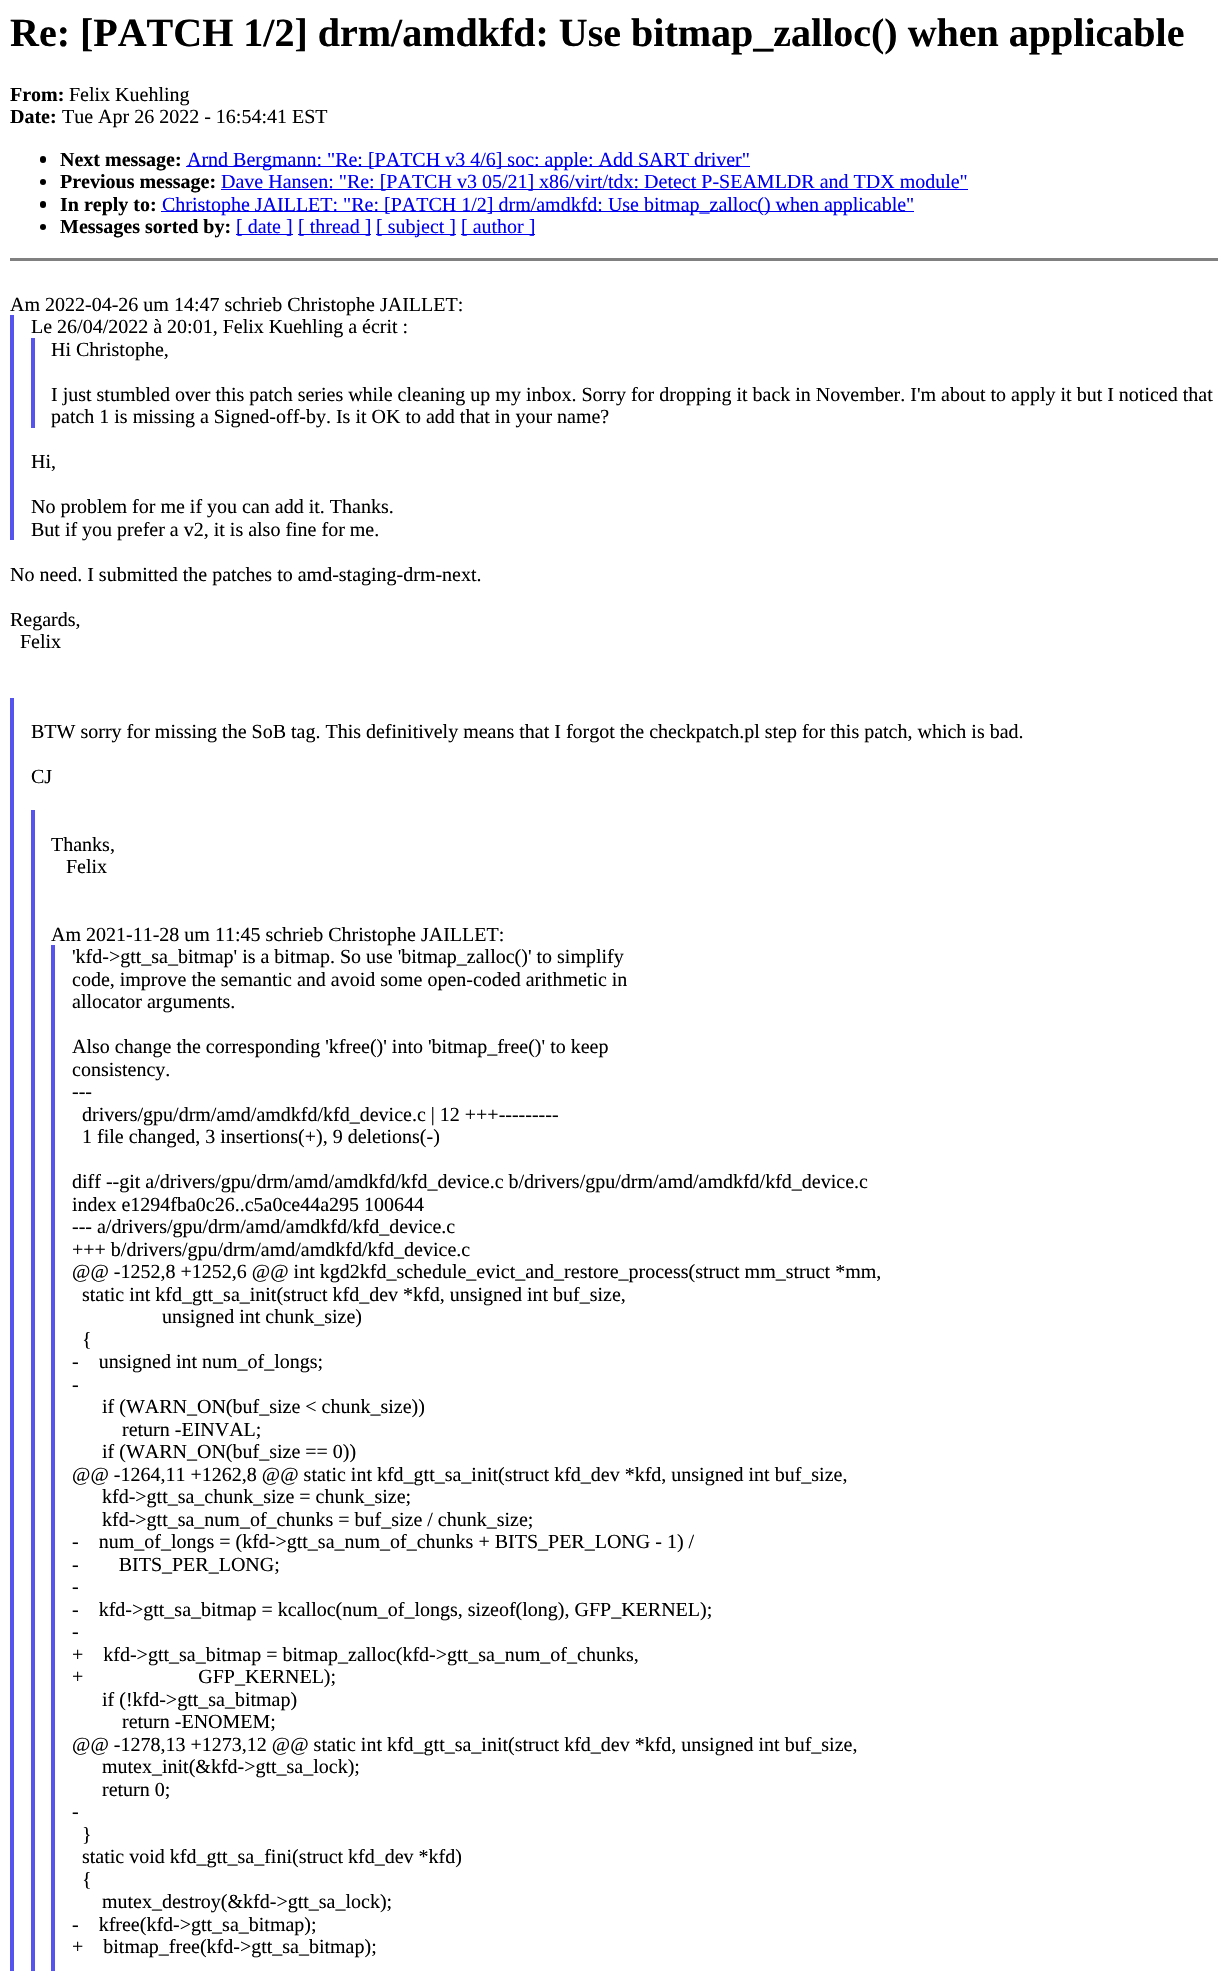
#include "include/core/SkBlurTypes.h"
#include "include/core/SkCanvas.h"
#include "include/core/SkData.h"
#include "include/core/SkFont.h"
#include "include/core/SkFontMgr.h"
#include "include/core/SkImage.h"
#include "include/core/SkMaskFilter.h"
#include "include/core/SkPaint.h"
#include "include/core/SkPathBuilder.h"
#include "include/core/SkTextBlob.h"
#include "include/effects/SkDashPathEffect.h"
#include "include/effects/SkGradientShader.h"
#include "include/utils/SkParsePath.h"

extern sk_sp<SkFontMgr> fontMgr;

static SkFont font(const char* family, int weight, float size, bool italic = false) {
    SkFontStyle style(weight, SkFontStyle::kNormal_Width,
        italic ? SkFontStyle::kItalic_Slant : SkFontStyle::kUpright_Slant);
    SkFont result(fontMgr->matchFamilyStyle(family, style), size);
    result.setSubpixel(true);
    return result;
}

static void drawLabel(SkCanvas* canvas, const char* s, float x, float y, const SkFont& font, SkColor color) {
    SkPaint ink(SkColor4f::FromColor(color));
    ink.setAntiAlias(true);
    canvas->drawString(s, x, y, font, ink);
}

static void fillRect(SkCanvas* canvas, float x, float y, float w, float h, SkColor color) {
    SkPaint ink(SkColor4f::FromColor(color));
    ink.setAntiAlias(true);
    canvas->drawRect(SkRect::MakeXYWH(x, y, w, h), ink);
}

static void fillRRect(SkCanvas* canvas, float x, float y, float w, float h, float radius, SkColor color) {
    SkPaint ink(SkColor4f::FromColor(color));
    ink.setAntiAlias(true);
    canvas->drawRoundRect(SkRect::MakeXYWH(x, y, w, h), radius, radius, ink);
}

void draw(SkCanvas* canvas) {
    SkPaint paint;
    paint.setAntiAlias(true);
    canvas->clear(0xFFFFFFFF);
    SkFont font1 = font("Liberation Serif", 700, 40);
    drawLabel(canvas, "Re: [PATCH 1/2] drm/amdkfd: Use bitmap_zalloc() when applicable", 10, 46, font1, 0xFF000000);
    SkFont font2 = font("Liberation Serif", 700, 20);
    drawLabel(canvas, "From:", 10, 101, font2, 0xFF000000);
    SkFont font3 = font("Liberation Serif", 400, 20);
    drawLabel(canvas, "Felix Kuehling", 69, 101, font3, 0xFF000000);
    drawLabel(canvas, "Date:", 10, 123, font2, 0xFF000000);
    drawLabel(canvas, "Tue Apr 26 2022 - 16:54:41 EST", 62, 123, font3, 0xFF000000);
    fillRRect(canvas, 40, 156, 6, 7, 3, 0xFF000000);
    drawLabel(canvas, "Next message:", 60, 166, font2, 0xFF000000);
    fillRect(canvas, 186, 166, 564, 1, 0xFF0000EE);
    drawLabel(canvas, "Arnd Bergmann: \"Re: [PATCH v3 4/6] soc: apple: Add SART driver\"", 187, 166, font3, 0xFF0000EE);
    paint.setColor(0xFF000000);
    canvas->drawCircle(43, 182, 3, paint);
    drawLabel(canvas, "Previous message:", 60, 188, font2, 0xFF000000);
    fillRect(canvas, 221, 189, 747, 1, 0xFF0000EE);
    drawLabel(canvas, "Dave Hansen: \"Re: [PATCH v3 05/21] x86/virt/tdx: Detect P-SEAMLDR and TDX module\"", 221, 188, font3, 0xFF0000EE);
    fillRRect(canvas, 40, 201, 6, 7, 3, 0xFF000000);
    drawLabel(canvas, "In reply to:", 60, 211, font2, 0xFF000000);
    fillRect(canvas, 161, 211, 753, 1, 0xFF0000EE);
    drawLabel(canvas, "Christophe JAILLET: \"Re: [PATCH 1/2] drm/amdkfd: Use bitmap_zalloc() when applicable\"", 162, 211, font3, 0xFF0000EE);
    canvas->drawCircle(43, 227, 3, paint);
    drawLabel(canvas, "Messages sorted by:", 60, 233, font2, 0xFF000000);
    fillRect(canvas, 236, 234, 57, 1, 0xFF0000EE);
    drawLabel(canvas, "[ date ]", 236, 233, font3, 0xFF0000EE);
    fillRect(canvas, 298, 234, 73, 1, 0xFF0000EE);
    drawLabel(canvas, "[ thread ]", 298, 233, font3, 0xFF0000EE);
    fillRect(canvas, 376, 234, 80, 1, 0xFF0000EE);
    drawLabel(canvas, "[ subject ]", 376, 233, font3, 0xFF0000EE);
    fillRect(canvas, 461, 234, 74, 1, 0xFF0000EE);
    drawLabel(canvas, "[ author ]", 461, 233, font3, 0xFF0000EE);
    fillRect(canvas, 10, 258, 1208, 3, 0xFF808080);
    fillRect(canvas, 10, 315, 4, 225, 0xFF5555EE);
    drawLabel(canvas, "Am 2022-04-26 um 14:47 schrieb Christophe JAILLET:", 10, 311, font3, 0xFF000000);
    drawLabel(canvas, "Le 26/04/2022 à 20:01, Felix Kuehling a écrit :", 31, 333, font3, 0xFF000000);
    fillRect(canvas, 31, 338, 4, 90, 0xFF5555EE);
    drawLabel(canvas, "Hi Christophe,", 51, 356, font3, 0xFF000000);
    drawLabel(canvas, "I just stumbled over this patch series while cleaning up my inbox. Sorry for dropping it back in November. I'm about to apply it but I noticed that", 51, 401, font3, 0xFF000000);
    drawLabel(canvas, "patch 1 is missing a Signed-off-by. Is it OK to add that in your name?", 51, 423, font3, 0xFF000000);
    drawLabel(canvas, "Hi,", 31, 468, font3, 0xFF000000);
    drawLabel(canvas, "No problem for me if you can add it. Thanks.", 31, 513, font3, 0xFF000000);
    drawLabel(canvas, "But if you prefer a v2, it is also fine for me.", 31, 536, font3, 0xFF000000);
    drawLabel(canvas, "No need. I submitted the patches to amd-staging-drm-next.", 10, 581, font3, 0xFF000000);
    drawLabel(canvas, "Regards,", 10, 626, font3, 0xFF000000);
    drawLabel(canvas, "Felix", 20, 648, font3, 0xFF000000);
    fillRect(canvas, 10, 698, 4, 1273, 0xFF5555EE);
    drawLabel(canvas, "BTW sorry for missing the SoB tag. This definitively means that I forgot the checkpatch.pl step for this patch, which is bad.", 31, 738, font3, 0xFF000000);
    drawLabel(canvas, "CJ", 31, 783, font3, 0xFF000000);
    fillRect(canvas, 31, 810, 4, 1161, 0xFF5555EE);
    drawLabel(canvas, "Thanks,", 51, 851, font3, 0xFF000000);
    drawLabel(canvas, "Felix", 66, 873, font3, 0xFF000000);
    fillRect(canvas, 51, 945, 4, 1026, 0xFF5555EE);
    drawLabel(canvas, "Am 2021-11-28 um 11:45 schrieb Christophe JAILLET:", 51, 941, font3, 0xFF000000);
    drawLabel(canvas, "'kfd->gtt_sa_bitmap' is a bitmap. So use 'bitmap_zalloc()' to simplify", 72, 963, font3, 0xFF000000);
    drawLabel(canvas, "code, improve the semantic and avoid some open-coded arithmetic in", 72, 986, font3, 0xFF000000);
    drawLabel(canvas, "allocator arguments.", 72, 1008, font3, 0xFF000000);
    drawLabel(canvas, "Also change the corresponding 'kfree()' into 'bitmap_free()' to keep", 72, 1053, font3, 0xFF000000);
    drawLabel(canvas, "consistency.", 72, 1076, font3, 0xFF000000);
    drawLabel(canvas, "---", 72, 1098, font3, 0xFF000000);
    drawLabel(canvas, "drivers/gpu/drm/amd/amdkfd/kfd_device.c | 12 +++---------", 82, 1121, font3, 0xFF000000);
    drawLabel(canvas, "1 file changed, 3 insertions(+), 9 deletions(-)", 82, 1143, font3, 0xFF000000);
    drawLabel(canvas, "diff --git a/drivers/gpu/drm/amd/amdkfd/kfd_device.c b/drivers/gpu/drm/amd/amdkfd/kfd_device.c", 72, 1188, font3, 0xFF000000);
    drawLabel(canvas, "index e1294fba0c26..c5a0ce44a295 100644", 72, 1211, font3, 0xFF000000);
    drawLabel(canvas, "--- a/drivers/gpu/drm/amd/amdkfd/kfd_device.c", 72, 1233, font3, 0xFF000000);
    drawLabel(canvas, "+++ b/drivers/gpu/drm/amd/amdkfd/kfd_device.c", 72, 1256, font3, 0xFF000000);
    drawLabel(canvas, "@@ -1252,8 +1252,6 @@ int kgd2kfd_schedule_evict_and_restore_process(struct mm_struct *mm,", 72, 1278, font3, 0xFF000000);
    drawLabel(canvas, "static int kfd_gtt_sa_init(struct kfd_dev *kfd, unsigned int buf_size,", 82, 1301, font3, 0xFF000000);
    drawLabel(canvas, "unsigned int chunk_size)", 162, 1323, font3, 0xFF000000);
    drawLabel(canvas, "{", 82, 1346, font3, 0xFF000000);
    drawLabel(canvas, "-    unsigned int num_of_longs;", 72, 1368, font3, 0xFF000000);
    drawLabel(canvas, "-", 72, 1391, font3, 0xFF000000);
    drawLabel(canvas, "if (WARN_ON(buf_size < chunk_size))", 102, 1413, font3, 0xFF000000);
    drawLabel(canvas, "return -EINVAL;", 122, 1436, font3, 0xFF000000);
    drawLabel(canvas, "if (WARN_ON(buf_size == 0))", 102, 1458, font3, 0xFF000000);
    drawLabel(canvas, "@@ -1264,11 +1262,8 @@ static int kfd_gtt_sa_init(struct kfd_dev *kfd, unsigned int buf_size,", 72, 1481, font3, 0xFF000000);
    drawLabel(canvas, "kfd->gtt_sa_chunk_size = chunk_size;", 102, 1503, font3, 0xFF000000);
    drawLabel(canvas, "kfd->gtt_sa_num_of_chunks = buf_size / chunk_size;", 102, 1526, font3, 0xFF000000);
    drawLabel(canvas, "-    num_of_longs = (kfd->gtt_sa_num_of_chunks + BITS_PER_LONG - 1) /", 72, 1548, font3, 0xFF000000);
    drawLabel(canvas, "-        BITS_PER_LONG;", 72, 1571, font3, 0xFF000000);
    drawLabel(canvas, "-", 72, 1593, font3, 0xFF000000);
    drawLabel(canvas, "-    kfd->gtt_sa_bitmap = kcalloc(num_of_longs, sizeof(long), GFP_KERNEL);", 72, 1616, font3, 0xFF000000);
    drawLabel(canvas, "-", 72, 1638, font3, 0xFF000000);
    drawLabel(canvas, "+    kfd->gtt_sa_bitmap = bitmap_zalloc(kfd->gtt_sa_num_of_chunks,", 72, 1661, font3, 0xFF000000);
    drawLabel(canvas, "+                       GFP_KERNEL);", 72, 1683, font3, 0xFF000000);
    drawLabel(canvas, "if (!kfd->gtt_sa_bitmap)", 102, 1706, font3, 0xFF000000);
    drawLabel(canvas, "return -ENOMEM;", 122, 1728, font3, 0xFF000000);
    drawLabel(canvas, "@@ -1278,13 +1273,12 @@ static int kfd_gtt_sa_init(struct kfd_dev *kfd, unsigned int buf_size,", 72, 1751, font3, 0xFF000000);
    drawLabel(canvas, "mutex_init(&kfd->gtt_sa_lock);", 102, 1773, font3, 0xFF000000);
    drawLabel(canvas, "return 0;", 102, 1796, font3, 0xFF000000);
    drawLabel(canvas, "-", 72, 1818, font3, 0xFF000000);
    drawLabel(canvas, "}", 82, 1841, font3, 0xFF000000);
    drawLabel(canvas, "static void kfd_gtt_sa_fini(struct kfd_dev *kfd)", 82, 1863, font3, 0xFF000000);
    drawLabel(canvas, "{", 82, 1886, font3, 0xFF000000);
    drawLabel(canvas, "mutex_destroy(&kfd->gtt_sa_lock);", 102, 1908, font3, 0xFF000000);
    drawLabel(canvas, "-    kfree(kfd->gtt_sa_bitmap);", 72, 1931, font3, 0xFF000000);
    drawLabel(canvas, "+    bitmap_free(kfd->gtt_sa_bitmap);", 72, 1953, font3, 0xFF000000);
}
